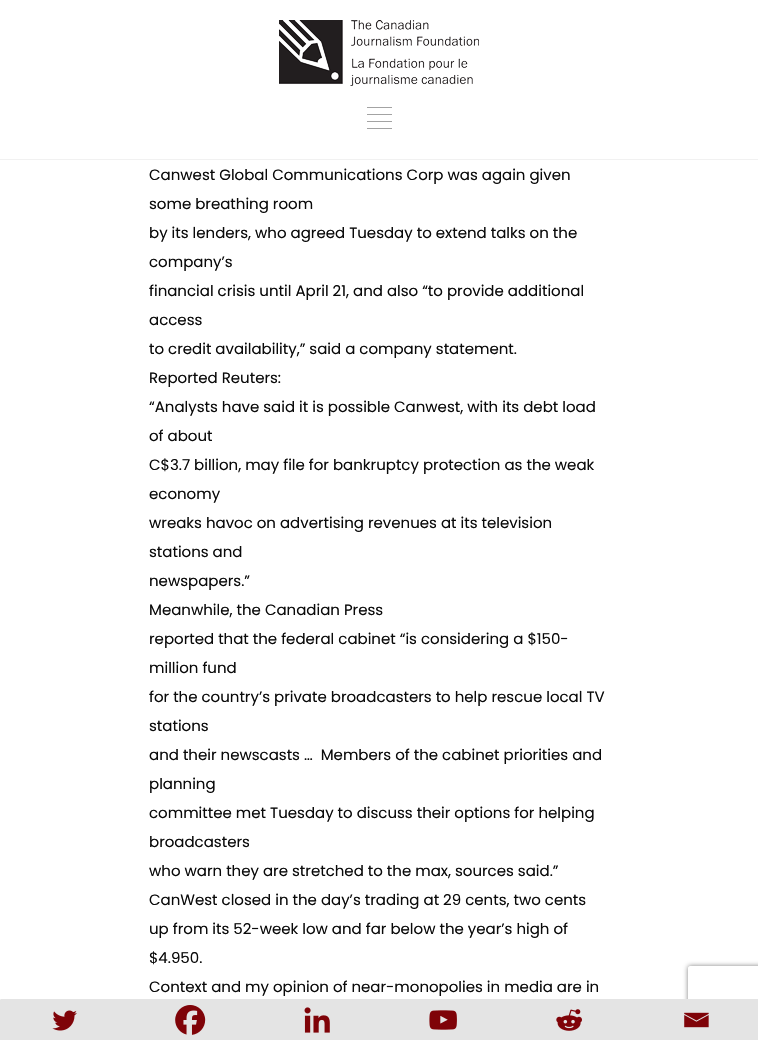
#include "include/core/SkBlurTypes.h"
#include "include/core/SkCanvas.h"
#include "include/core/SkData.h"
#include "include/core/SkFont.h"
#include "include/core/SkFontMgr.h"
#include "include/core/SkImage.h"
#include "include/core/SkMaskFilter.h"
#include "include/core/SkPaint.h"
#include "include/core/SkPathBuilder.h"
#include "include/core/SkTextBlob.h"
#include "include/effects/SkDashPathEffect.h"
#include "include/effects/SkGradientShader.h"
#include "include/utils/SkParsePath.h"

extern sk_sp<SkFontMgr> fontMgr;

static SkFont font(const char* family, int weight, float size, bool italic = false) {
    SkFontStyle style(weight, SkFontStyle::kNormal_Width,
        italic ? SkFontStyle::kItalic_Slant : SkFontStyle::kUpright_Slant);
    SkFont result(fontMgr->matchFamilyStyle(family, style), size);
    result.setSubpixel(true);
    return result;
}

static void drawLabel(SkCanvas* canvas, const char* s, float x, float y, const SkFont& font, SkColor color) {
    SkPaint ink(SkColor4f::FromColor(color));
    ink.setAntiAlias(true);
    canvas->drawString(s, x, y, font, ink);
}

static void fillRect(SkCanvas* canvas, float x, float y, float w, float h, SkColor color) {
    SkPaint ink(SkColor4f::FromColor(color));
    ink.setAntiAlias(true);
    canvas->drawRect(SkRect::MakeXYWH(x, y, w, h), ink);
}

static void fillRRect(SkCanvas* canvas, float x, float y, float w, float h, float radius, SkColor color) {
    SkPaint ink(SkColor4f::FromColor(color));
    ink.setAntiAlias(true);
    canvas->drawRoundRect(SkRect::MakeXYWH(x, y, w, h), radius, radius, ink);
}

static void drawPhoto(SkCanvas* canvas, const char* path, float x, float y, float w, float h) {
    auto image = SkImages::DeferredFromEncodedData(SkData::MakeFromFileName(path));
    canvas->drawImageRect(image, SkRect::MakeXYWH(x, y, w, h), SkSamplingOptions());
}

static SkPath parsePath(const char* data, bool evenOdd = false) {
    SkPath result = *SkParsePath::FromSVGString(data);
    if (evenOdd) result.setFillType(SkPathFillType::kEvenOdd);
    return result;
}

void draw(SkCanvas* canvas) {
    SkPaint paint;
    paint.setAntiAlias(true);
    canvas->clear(0xFFFFFFFF);
    fillRect(canvas, 0, 159, 758, 1, 0xFFF1F1F1);
    drawPhoto(canvas, "assets/img1.png", 279, 20, 200, 66);
    fillRect(canvas, 367, 107, 25, 1, 0xFFA3A3A3);
    fillRect(canvas, 367, 114, 25, 1, 0xFFA3A3A3);
    fillRect(canvas, 367, 121, 25, 1, 0xFFA3A3A3);
    fillRect(canvas, 367, 128, 25, 1, 0xFFA3A3A3);
    SkFont font1 = font("Poppins", 400, 15);
    drawLabel(canvas, "Canwest Global Communications Corp was again given", 149, 180, font1, 0xFF0A0A0A);
    drawLabel(canvas, "some breathing room", 149, 209, font1, 0xFF0A0A0A);
    drawLabel(canvas, "by its lenders, who agreed Tuesday to extend talks on the", 149, 238, font1, 0xFF0A0A0A);
    drawLabel(canvas, "company’s", 149, 267, font1, 0xFF0A0A0A);
    drawLabel(canvas, "financial crisis until April 21, and also “to provide additional", 149, 296, font1, 0xFF0A0A0A);
    drawLabel(canvas, "access", 149, 325, font1, 0xFF0A0A0A);
    drawLabel(canvas, "to credit availability,” said a company statement.", 149, 354, font1, 0xFF0A0A0A);
    drawLabel(canvas, "Reported Reuters:", 149, 383, font1, 0xFF0A0A0A);
    drawLabel(canvas, "“Analysts have said it is possible Canwest, with its debt load", 149, 412, font1, 0xFF0A0A0A);
    drawLabel(canvas, "of about", 149, 441, font1, 0xFF0A0A0A);
    drawLabel(canvas, "C$3.7 billion, may file for bankruptcy protection as the weak", 149, 470, font1, 0xFF0A0A0A);
    drawLabel(canvas, "economy", 149, 499, font1, 0xFF0A0A0A);
    drawLabel(canvas, "wreaks havoc on advertising revenues at its television", 149, 528, font1, 0xFF0A0A0A);
    drawLabel(canvas, "stations and", 149, 557, font1, 0xFF0A0A0A);
    drawLabel(canvas, "newspapers.”", 149, 586, font1, 0xFF0A0A0A);
    drawLabel(canvas, "Meanwhile, the Canadian Press", 149, 615, font1, 0xFF0A0A0A);
    drawLabel(canvas, "reported that the federal cabinet “is considering a $150-", 149, 644, font1, 0xFF0A0A0A);
    drawLabel(canvas, "million fund", 149, 673, font1, 0xFF0A0A0A);
    drawLabel(canvas, "for the country’s private broadcasters to help rescue local TV", 149, 702, font1, 0xFF0A0A0A);
    drawLabel(canvas, "stations", 149, 731, font1, 0xFF0A0A0A);
    drawLabel(canvas, "and their newscasts …  Members of the cabinet priorities and", 149, 760, font1, 0xFF0A0A0A);
    drawLabel(canvas, "planning", 149, 789, font1, 0xFF0A0A0A);
    drawLabel(canvas, "committee met Tuesday to discuss their options for helping", 149, 818, font1, 0xFF0A0A0A);
    drawLabel(canvas, "broadcasters", 149, 847, font1, 0xFF0A0A0A);
    drawLabel(canvas, "who warn they are stretched to the max, sources said.”", 149, 876, font1, 0xFF0A0A0A);
    drawLabel(canvas, "CanWest closed in the day’s trading at 29 cents, two cents", 149, 905, font1, 0xFF0A0A0A);
    drawLabel(canvas, "up from its 52-week low and far below the year’s high of", 149, 934, font1, 0xFF0A0A0A);
    drawLabel(canvas, "$4.950.", 149, 963, font1, 0xFF0A0A0A);
    drawLabel(canvas, "Context and my opinion of near-monopolies in media are in", 149, 992, font1, 0xFF0A0A0A);
    paint.setColor(0xFFE4E4E4);
    canvas->drawRoundRect(SkRect::MakeXYWH(0.5f, 999.5f, 127, 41), 0.5f, 0.5f, paint);
    paint.setStroke(true);
    paint.setStrokeWidth(1);
    canvas->drawRoundRect(SkRect::MakeXYWH(0.5f, 999.5f, 127, 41), 0.5f, 0.5f, paint);
    drawPhoto(canvas, "assets/img2.png", 52, 1010, 25, 21);
    paint.setStroke(false);
    canvas->drawRoundRect(SkRect::MakeXYWH(126.5f, 999.5f, 128, 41), 0.5f, 0.5f, paint);
    paint.setStroke(true);
    canvas->drawRoundRect(SkRect::MakeXYWH(126.5f, 999.5f, 128, 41), 0.5f, 0.5f, paint);
    drawPhoto(canvas, "assets/img3.png", 175, 1005, 31, 30);
    paint.setStroke(false);
    canvas->drawRoundRect(SkRect::MakeXYWH(253.5f, 999.5f, 127, 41), 0.5f, 0.5f, paint);
    paint.setStroke(true);
    canvas->drawRoundRect(SkRect::MakeXYWH(253.5f, 999.5f, 127, 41), 0.5f, 0.5f, paint);
    drawPhoto(canvas, "assets/img4.png", 304, 1007, 26, 26);
    paint.setStroke(false);
    canvas->drawRoundRect(SkRect::MakeXYWH(379.5f, 999.5f, 127, 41), 0.5f, 0.5f, paint);
    paint.setStroke(true);
    canvas->drawRoundRect(SkRect::MakeXYWH(379.5f, 999.5f, 127, 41), 0.5f, 0.5f, paint);
    drawPhoto(canvas, "assets/img5.png", 429, 1010, 28, 20);
    paint.setStroke(false);
    canvas->drawRoundRect(SkRect::MakeXYWH(505.5f, 999.5f, 128, 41), 0.5f, 0.5f, paint);
    paint.setStroke(true);
    canvas->drawRoundRect(SkRect::MakeXYWH(505.5f, 999.5f, 128, 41), 0.5f, 0.5f, paint);
    drawPhoto(canvas, "assets/img6.png", 556, 1009, 26, 22);
    canvas->save();
    canvas->clipPath(parsePath("M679 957H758V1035H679ZM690 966H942C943 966 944 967 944 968V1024C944 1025 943 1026 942 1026H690C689 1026 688 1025 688 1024V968C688 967 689 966 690 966Z", true), true);
    paint.setStroke(false);
    paint.setColor(0xFF808080);
    paint.setMaskFilter(SkMaskFilter::MakeBlur(kNormal_SkBlurStyle, 2.5f));
    canvas->drawRoundRect(SkRect::MakeXYWH(688, 966, 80, 60), 2, 2, paint);
    paint.setMaskFilter(nullptr);
    canvas->restore();
    fillRRect(canvas, 632, 999, 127, 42, 1, 0xFFE4E4E4);
    drawPhoto(canvas, "assets/img7.png", 684, 1012, 25, 16);
}
